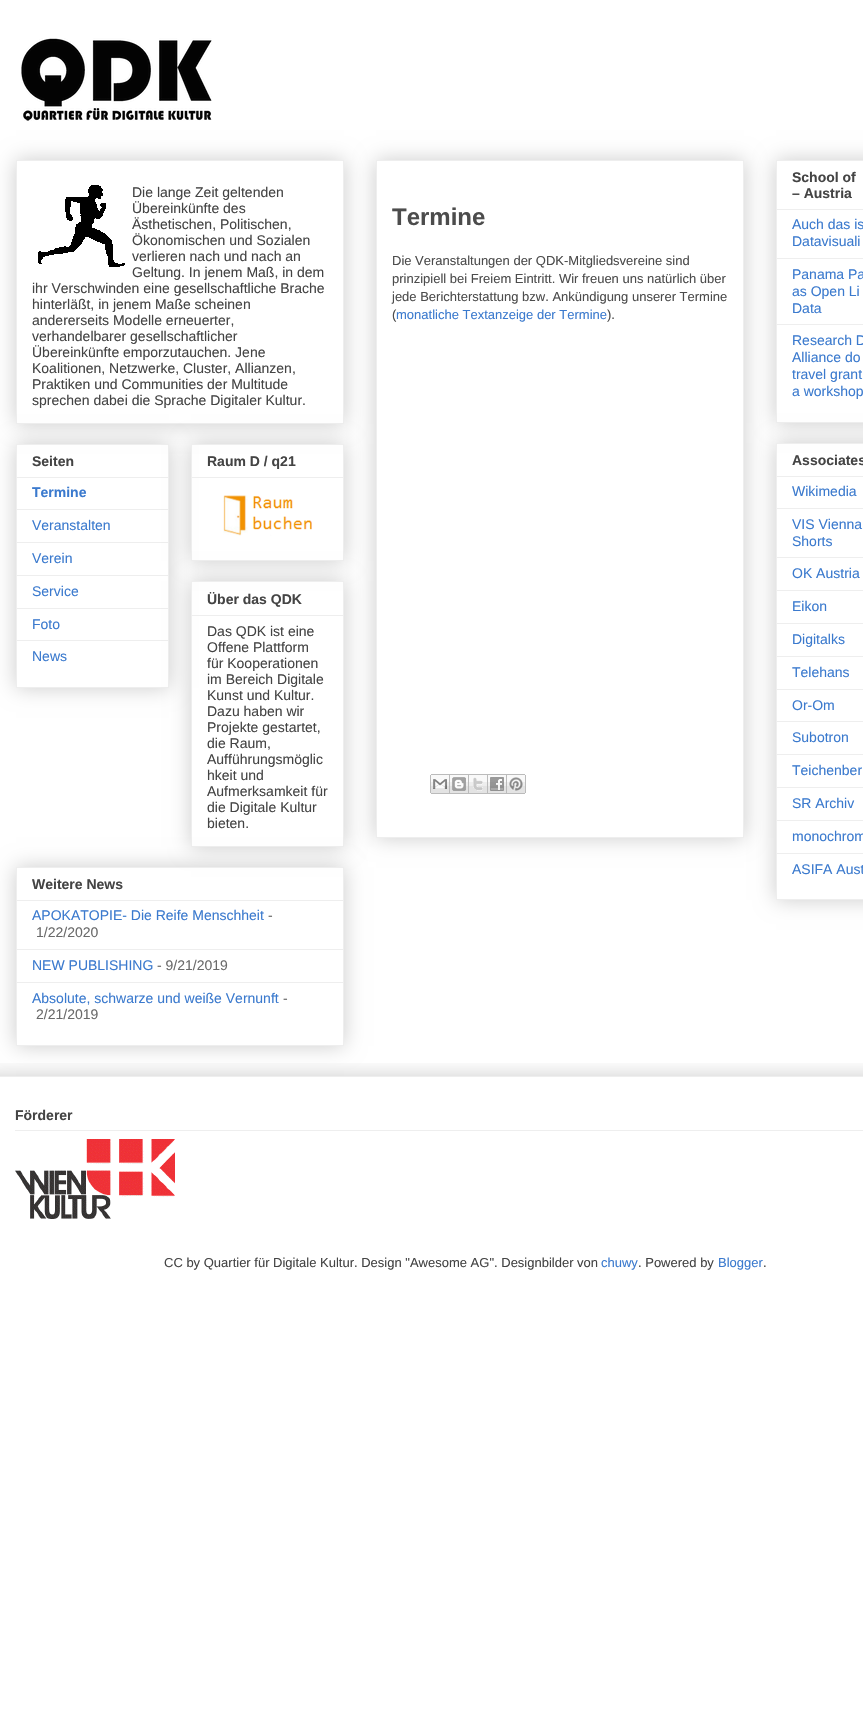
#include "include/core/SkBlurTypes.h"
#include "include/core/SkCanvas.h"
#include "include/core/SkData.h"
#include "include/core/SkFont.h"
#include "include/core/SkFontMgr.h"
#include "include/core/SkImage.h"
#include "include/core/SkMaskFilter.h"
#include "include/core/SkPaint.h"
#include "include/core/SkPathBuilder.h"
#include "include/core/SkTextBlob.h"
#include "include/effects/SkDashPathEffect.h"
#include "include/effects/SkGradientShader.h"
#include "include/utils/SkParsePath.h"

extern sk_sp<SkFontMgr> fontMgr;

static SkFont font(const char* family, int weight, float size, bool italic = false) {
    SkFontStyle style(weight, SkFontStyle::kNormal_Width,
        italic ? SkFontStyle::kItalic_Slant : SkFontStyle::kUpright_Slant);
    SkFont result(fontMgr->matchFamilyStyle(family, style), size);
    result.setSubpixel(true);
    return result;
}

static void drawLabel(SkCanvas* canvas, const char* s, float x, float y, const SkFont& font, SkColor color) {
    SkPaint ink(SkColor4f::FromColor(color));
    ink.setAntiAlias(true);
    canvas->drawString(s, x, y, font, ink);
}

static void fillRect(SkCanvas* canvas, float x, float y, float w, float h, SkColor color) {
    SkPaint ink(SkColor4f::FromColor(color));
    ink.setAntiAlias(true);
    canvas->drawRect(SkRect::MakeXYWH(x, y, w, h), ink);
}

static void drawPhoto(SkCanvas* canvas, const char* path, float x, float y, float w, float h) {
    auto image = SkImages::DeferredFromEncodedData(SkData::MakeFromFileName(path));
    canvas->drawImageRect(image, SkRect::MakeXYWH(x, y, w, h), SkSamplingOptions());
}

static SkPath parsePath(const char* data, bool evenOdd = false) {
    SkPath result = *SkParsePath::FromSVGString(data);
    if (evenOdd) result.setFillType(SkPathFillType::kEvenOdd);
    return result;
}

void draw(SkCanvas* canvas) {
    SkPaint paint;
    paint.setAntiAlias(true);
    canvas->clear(0xFFFFFFFF);
    drawPhoto(canvas, "assets/img1.png", 21, 38, 191, 83);
    canvas->save();
    canvas->clipPath(parsePath("M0 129H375V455H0ZM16 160H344V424H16Z", true), true);
    paint.setColor(0x33000000);
    paint.setMaskFilter(SkMaskFilter::MakeBlur(kNormal_SkBlurStyle, 10));
    canvas->drawRect(SkRect::MakeXYWH(16, 160, 328, 264), paint);
    paint.setMaskFilter(nullptr);
    canvas->restore();
    paint.setStroke(true);
    paint.setStrokeWidth(1);
    paint.setColor(0xFFEEEEEE);
    canvas->drawRect(SkRect::MakeXYWH(16.5f, 160.5f, 327, 263), paint);
    drawPhoto(canvas, "assets/img2.png", 38, 185, 87, 82);
    SkFont font1 = font("Liberation Sans", 400, 14);
    drawLabel(canvas, "Die lange Zeit geltenden", 132, 197, font1, 0xFF444444);
    drawLabel(canvas, "Übereinkünfte des", 132, 213, font1, 0xFF444444);
    drawLabel(canvas, "Ästhetischen, Politischen,", 132, 229, font1, 0xFF444444);
    drawLabel(canvas, "Ökonomischen und Sozialen", 132, 245, font1, 0xFF444444);
    drawLabel(canvas, "verlieren nach und nach an", 132, 261, font1, 0xFF444444);
    drawLabel(canvas, "Geltung. In jenem Maß, in dem", 132, 277, font1, 0xFF444444);
    drawLabel(canvas, "ihr Verschwinden eine gesellschaftliche Brache", 32, 293, font1, 0xFF444444);
    drawLabel(canvas, "hinterläßt, in jenem Maße scheinen", 32, 309, font1, 0xFF444444);
    drawLabel(canvas, "andererseits Modelle erneuerter,", 32, 325, font1, 0xFF444444);
    drawLabel(canvas, "verhandelbarer gesellschaftlicher", 32, 341, font1, 0xFF444444);
    drawLabel(canvas, "Übereinkünfte emporzutauchen. Jene", 32, 357, font1, 0xFF444444);
    drawLabel(canvas, "Koalitionen, Netzwerke, Cluster, Allianzen,", 32, 373, font1, 0xFF444444);
    drawLabel(canvas, "Praktiken und Communities der Multitude", 32, 389, font1, 0xFF444444);
    drawLabel(canvas, "sprechen dabei die Sprache Digitaler Kultur.", 32, 405, font1, 0xFF444444);
    canvas->save();
    canvas->clipPath(parsePath("M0 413H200V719H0ZM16 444H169V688H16Z", true), true);
    paint.setStroke(false);
    paint.setColor(0x33000000);
    paint.setMaskFilter(SkMaskFilter::MakeBlur(kNormal_SkBlurStyle, 10));
    canvas->drawRect(SkRect::MakeXYWH(16, 444, 153, 244), paint);
    paint.setMaskFilter(nullptr);
    canvas->restore();
    paint.setStroke(true);
    paint.setColor(0xFFEEEEEE);
    canvas->drawRect(SkRect::MakeXYWH(16.5f, 444.5f, 152, 243), paint);
    SkFont font2 = font("Liberation Sans", 700, 14);
    drawLabel(canvas, "Seiten", 32, 466, font2, 0xFF444444);
    fillRect(canvas, 17, 477, 151, 1, 0xFFEEEEEE);
    drawLabel(canvas, "Termine", 32, 497, font2, 0xFF3B7ACE);
    fillRect(canvas, 17, 509, 151, 1, 0xFFEEEEEE);
    drawLabel(canvas, "Veranstalten", 32, 530, font1, 0xFF3B7ACE);
    fillRect(canvas, 17, 542, 151, 1, 0xFFEEEEEE);
    drawLabel(canvas, "Verein", 32, 563, font1, 0xFF3B7ACE);
    fillRect(canvas, 17, 575, 151, 1, 0xFFEEEEEE);
    drawLabel(canvas, "Service", 32, 596, font1, 0xFF3B7ACE);
    fillRect(canvas, 17, 608, 151, 1, 0xFFEEEEEE);
    drawLabel(canvas, "Foto", 32, 629, font1, 0xFF3B7ACE);
    fillRect(canvas, 17, 640, 151, 1, 0xFFEEEEEE);
    drawLabel(canvas, "News", 32, 661, font1, 0xFF3B7ACE);
    canvas->save();
    canvas->clipPath(parsePath("M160 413H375V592H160ZM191 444H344V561H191Z", true), true);
    paint.setStroke(false);
    paint.setColor(0x33000000);
    paint.setMaskFilter(SkMaskFilter::MakeBlur(kNormal_SkBlurStyle, 10));
    canvas->drawRect(SkRect::MakeXYWH(191, 444, 153, 117), paint);
    paint.setMaskFilter(nullptr);
    canvas->restore();
    paint.setStroke(true);
    paint.setColor(0xFFEEEEEE);
    canvas->drawRect(SkRect::MakeXYWH(191.5f, 444.5f, 152, 116), paint);
    drawLabel(canvas, "Raum D / q21", 207, 466, font2, 0xFF444444);
    fillRect(canvas, 192, 477, 151, 1, 0xFFEEEEEE);
    drawPhoto(canvas, "assets/img3.png", 223, 495, 89, 41);
    canvas->save();
    canvas->clipPath(parsePath("M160 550H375V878H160ZM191 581H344V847H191Z", true), true);
    paint.setStroke(false);
    paint.setColor(0x33000000);
    paint.setMaskFilter(SkMaskFilter::MakeBlur(kNormal_SkBlurStyle, 10));
    canvas->drawRect(SkRect::MakeXYWH(191, 581, 153, 266), paint);
    paint.setMaskFilter(nullptr);
    canvas->restore();
    paint.setStroke(true);
    paint.setColor(0xFFEEEEEE);
    canvas->drawRect(SkRect::MakeXYWH(191.5f, 581.5f, 152, 265), paint);
    drawLabel(canvas, "Über das QDK", 207, 604, font2, 0xFF444444);
    fillRect(canvas, 192, 615, 151, 1, 0xFFEEEEEE);
    drawLabel(canvas, "Das QDK ist eine", 207, 636, font1, 0xFF444444);
    drawLabel(canvas, "Offene Plattform", 207, 652, font1, 0xFF444444);
    drawLabel(canvas, "für Kooperationen", 207, 668, font1, 0xFF444444);
    drawLabel(canvas, "im Bereich Digitale", 207, 684, font1, 0xFF444444);
    drawLabel(canvas, "Kunst und Kultur.", 207, 700, font1, 0xFF444444);
    drawLabel(canvas, "Dazu haben wir", 207, 716, font1, 0xFF444444);
    drawLabel(canvas, "Projekte gestartet,", 207, 732, font1, 0xFF444444);
    drawLabel(canvas, "die Raum,", 207, 748, font1, 0xFF444444);
    drawLabel(canvas, "Aufführungsmöglic", 207, 764, font1, 0xFF444444);
    drawLabel(canvas, "hkeit und", 207, 780, font1, 0xFF444444);
    drawLabel(canvas, "Aufmerksamkeit für", 207, 796, font1, 0xFF444444);
    drawLabel(canvas, "die Digitale Kultur", 207, 812, font1, 0xFF444444);
    drawLabel(canvas, "bieten.", 207, 828, font1, 0xFF444444);
    canvas->save();
    canvas->clipPath(parsePath("M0 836H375V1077H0ZM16 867H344V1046H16Z", true), true);
    paint.setStroke(false);
    paint.setColor(0x33000000);
    paint.setMaskFilter(SkMaskFilter::MakeBlur(kNormal_SkBlurStyle, 10));
    canvas->drawRect(SkRect::MakeXYWH(16, 867, 328, 179), paint);
    paint.setMaskFilter(nullptr);
    canvas->restore();
    paint.setStroke(true);
    paint.setColor(0xFFEEEEEE);
    canvas->drawRect(SkRect::MakeXYWH(16.5f, 867.5f, 327, 178), paint);
    drawLabel(canvas, "Weitere News", 32, 889, font2, 0xFF444444);
    fillRect(canvas, 17, 900, 326, 1, 0xFFEEEEEE);
    drawLabel(canvas, "APOKATOPIE- Die Reife Menschheit", 32, 920, font1, 0xFF3B7ACE);
    drawLabel(canvas, "-", 268, 920, font1, 0xFF6A6A6A);
    drawLabel(canvas, "1/22/2020", 36, 937, font1, 0xFF6A6A6A);
    fillRect(canvas, 17, 949, 326, 1, 0xFFEEEEEE);
    drawLabel(canvas, "NEW PUBLISHING", 32, 970, font1, 0xFF3B7ACE);
    drawLabel(canvas, "- 9/21/2019", 157, 970, font1, 0xFF6A6A6A);
    fillRect(canvas, 17, 982, 326, 1, 0xFFEEEEEE);
    drawLabel(canvas, "Absolute, schwarze und weiße Vernunft", 32, 1003, font1, 0xFF3B7ACE);
    drawLabel(canvas, "-", 283, 1003, font1, 0xFF6A6A6A);
    drawLabel(canvas, "2/21/2019", 36, 1019, font1, 0xFF6A6A6A);
    canvas->save();
    canvas->clipPath(parsePath("M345 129H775V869H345ZM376 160H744V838H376Z", true), true);
    paint.setStroke(false);
    paint.setColor(0x33000000);
    paint.setMaskFilter(SkMaskFilter::MakeBlur(kNormal_SkBlurStyle, 10));
    canvas->drawRect(SkRect::MakeXYWH(376, 160, 368, 678), paint);
    paint.setMaskFilter(nullptr);
    canvas->restore();
    paint.setStroke(true);
    paint.setColor(0xFFEEEEEE);
    canvas->drawRect(SkRect::MakeXYWH(376.5f, 160.5f, 367, 677), paint);
    SkFont font3 = font("Liberation Sans", 700, 24);
    drawLabel(canvas, "Termine", 392, 225, font3, 0xFF4C4C4C);
    SkFont font4 = font("Liberation Sans", 400, 13);
    drawLabel(canvas, "Die Veranstaltungen der QDK-Mitgliedsvereine sind", 392, 265, font4, 0xFF4C4C4C);
    drawLabel(canvas, "prinzipiell bei Freiem Eintritt. Wir freuen uns natürlich über", 392, 283, font4, 0xFF4C4C4C);
    drawLabel(canvas, "jede Berichterstattung bzw. Ankündigung unserer Termine", 392, 301, font4, 0xFF4C4C4C);
    drawLabel(canvas, "(", 392, 319, font4, 0xFF4C4C4C);
    drawLabel(canvas, "monatliche Textanzeige der Termine", 396, 319, font4, 0xFF3B7ACE);
    drawLabel(canvas, ").", 607, 319, font4, 0xFF4C4C4C);
    drawPhoto(canvas, "assets/img4.png", 430, 774, 20, 20);
    drawPhoto(canvas, "assets/img5.png", 450, 774, 19, 20);
    drawPhoto(canvas, "assets/img6.png", 469, 774, 19, 20);
    drawPhoto(canvas, "assets/img7.png", 488, 774, 19, 20);
    drawPhoto(canvas, "assets/img8.png", 507, 774, 19, 20);
    canvas->save();
    canvas->clipPath(parsePath("M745 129H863V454H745ZM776 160H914V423H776Z", true), true);
    paint.setStroke(false);
    paint.setColor(0x33000000);
    paint.setMaskFilter(SkMaskFilter::MakeBlur(kNormal_SkBlurStyle, 10));
    canvas->drawRect(SkRect::MakeXYWH(776, 160, 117, 263), paint);
    paint.setMaskFilter(nullptr);
    canvas->restore();
    paint.setStroke(true);
    paint.setColor(0xFFEEEEEE);
    canvas->drawRect(SkRect::MakeXYWH(776.5f, 160.5f, 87, 262), paint);
    drawLabel(canvas, "School of", 792, 182, font2, 0xFF444444);
    drawLabel(canvas, "– Austria", 792, 198, font2, 0xFF444444);
    fillRect(canvas, 777, 209, 86, 1, 0xFFEEEEEE);
    drawLabel(canvas, "Auch das is", 792, 229, font1, 0xFF3B7ACE);
    drawLabel(canvas, "Datavisuali", 792, 246, font1, 0xFF3B7ACE);
    fillRect(canvas, 777, 258, 86, 1, 0xFFEEEEEE);
    drawLabel(canvas, "Panama Pa", 792, 279, font1, 0xFF3B7ACE);
    drawLabel(canvas, "as Open Li", 792, 296, font1, 0xFF3B7ACE);
    drawLabel(canvas, "Data", 792, 313, font1, 0xFF3B7ACE);
    fillRect(canvas, 777, 324, 86, 1, 0xFFEEEEEE);
    drawLabel(canvas, "Research D", 792, 345, font1, 0xFF3B7ACE);
    drawLabel(canvas, "Alliance do", 792, 362, font1, 0xFF3B7ACE);
    drawLabel(canvas, "travel grant", 792, 379, font1, 0xFF3B7ACE);
    drawLabel(canvas, "a workshop", 792, 396, font1, 0xFF3B7ACE);
    canvas->save();
    canvas->clipPath(parsePath("M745 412H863V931H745ZM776 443H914V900H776Z", true), true);
    paint.setStroke(false);
    paint.setColor(0x33000000);
    paint.setMaskFilter(SkMaskFilter::MakeBlur(kNormal_SkBlurStyle, 10));
    canvas->drawRect(SkRect::MakeXYWH(776, 443, 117, 457), paint);
    paint.setMaskFilter(nullptr);
    canvas->restore();
    paint.setStroke(true);
    paint.setColor(0xFFEEEEEE);
    canvas->drawRect(SkRect::MakeXYWH(776.5f, 443.5f, 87, 456), paint);
    drawLabel(canvas, "Associates", 792, 465, font2, 0xFF444444);
    fillRect(canvas, 777, 476, 86, 1, 0xFFEEEEEE);
    drawLabel(canvas, "Wikimedia", 792, 496, font1, 0xFF3B7ACE);
    fillRect(canvas, 777, 508, 86, 1, 0xFFEEEEEE);
    drawLabel(canvas, "VIS Vienna", 792, 529, font1, 0xFF3B7ACE);
    drawLabel(canvas, "Shorts", 792, 546, font1, 0xFF3B7ACE);
    fillRect(canvas, 777, 557, 86, 1, 0xFFEEEEEE);
    drawLabel(canvas, "OK Austria", 792, 578, font1, 0xFF3B7ACE);
    fillRect(canvas, 777, 590, 86, 1, 0xFFEEEEEE);
    drawLabel(canvas, "Eikon", 792, 611, font1, 0xFF3B7ACE);
    fillRect(canvas, 777, 623, 86, 1, 0xFFEEEEEE);
    drawLabel(canvas, "Digitalks", 792, 644, font1, 0xFF3B7ACE);
    fillRect(canvas, 777, 656, 86, 1, 0xFFEEEEEE);
    drawLabel(canvas, "Telehans", 792, 677, font1, 0xFF3B7ACE);
    fillRect(canvas, 777, 689, 86, 1, 0xFFEEEEEE);
    drawLabel(canvas, "Or-Om", 792, 710, font1, 0xFF3B7ACE);
    fillRect(canvas, 777, 721, 86, 1, 0xFFEEEEEE);
    drawLabel(canvas, "Subotron", 792, 742, font1, 0xFF3B7ACE);
    fillRect(canvas, 777, 754, 86, 1, 0xFFEEEEEE);
    drawLabel(canvas, "Teichenber", 792, 775, font1, 0xFF3B7ACE);
    fillRect(canvas, 777, 787, 86, 1, 0xFFEEEEEE);
    drawLabel(canvas, "SR Archiv", 792, 808, font1, 0xFF3B7ACE);
    fillRect(canvas, 777, 820, 86, 1, 0xFFEEEEEE);
    drawLabel(canvas, "monochrom", 792, 841, font1, 0xFF3B7ACE);
    fillRect(canvas, 777, 853, 86, 1, 0xFFEEEEEE);
    drawLabel(canvas, "ASIFA Aust", 792, 874, font1, 0xFF3B7ACE);
    canvas->save();
    canvas->clipRect(SkRect::MakeXYWH(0, 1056, 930, 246));
    canvas->clipRect(SkRect::MakeXYWH(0, 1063, 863, 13));
    paint.setStroke(false);
    paint.setColor(0x33000000);
    paint.setMaskFilter(SkMaskFilter::MakeBlur(kNormal_SkBlurStyle, 10));
    canvas->drawRect(SkRect::MakeXYWH(-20, 1076, 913, 226), paint);
    paint.setMaskFilter(nullptr);
    canvas->restore();
    fillRect(canvas, 0, 1076, 863, 1, 0xFFEEEEEE);
    drawLabel(canvas, "Förderer", 15, 1120, font2, 0xFF444444);
    fillRect(canvas, 15, 1130, 848, 1, 0xFFEEEEEE);
    drawPhoto(canvas, "assets/img9.png", 15, 1139, 160, 80);
    drawLabel(canvas, "CC by Quartier für Digitale Kultur. Design \"Awesome AG\". Designbilder von", 164, 1267, font4, 0xFF444444);
    drawLabel(canvas, "chuwy", 601, 1267, font4, 0xFF3B7ACE);
    drawLabel(canvas, ". Powered by", 638, 1267, font4, 0xFF444444);
    drawLabel(canvas, "Blogger", 718, 1267, font4, 0xFF3B7ACE);
    drawLabel(canvas, ".", 763, 1267, font4, 0xFF444444);
}
